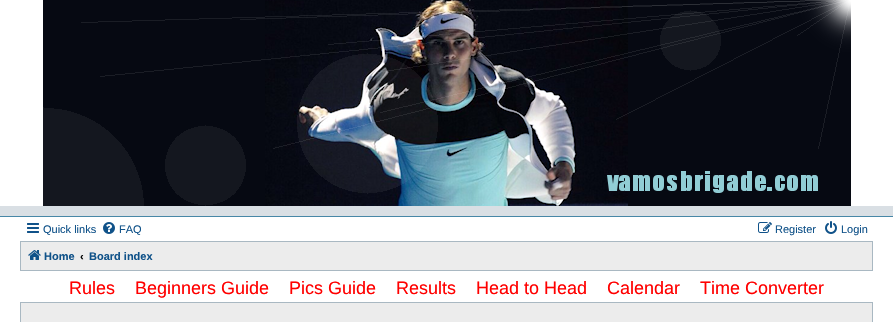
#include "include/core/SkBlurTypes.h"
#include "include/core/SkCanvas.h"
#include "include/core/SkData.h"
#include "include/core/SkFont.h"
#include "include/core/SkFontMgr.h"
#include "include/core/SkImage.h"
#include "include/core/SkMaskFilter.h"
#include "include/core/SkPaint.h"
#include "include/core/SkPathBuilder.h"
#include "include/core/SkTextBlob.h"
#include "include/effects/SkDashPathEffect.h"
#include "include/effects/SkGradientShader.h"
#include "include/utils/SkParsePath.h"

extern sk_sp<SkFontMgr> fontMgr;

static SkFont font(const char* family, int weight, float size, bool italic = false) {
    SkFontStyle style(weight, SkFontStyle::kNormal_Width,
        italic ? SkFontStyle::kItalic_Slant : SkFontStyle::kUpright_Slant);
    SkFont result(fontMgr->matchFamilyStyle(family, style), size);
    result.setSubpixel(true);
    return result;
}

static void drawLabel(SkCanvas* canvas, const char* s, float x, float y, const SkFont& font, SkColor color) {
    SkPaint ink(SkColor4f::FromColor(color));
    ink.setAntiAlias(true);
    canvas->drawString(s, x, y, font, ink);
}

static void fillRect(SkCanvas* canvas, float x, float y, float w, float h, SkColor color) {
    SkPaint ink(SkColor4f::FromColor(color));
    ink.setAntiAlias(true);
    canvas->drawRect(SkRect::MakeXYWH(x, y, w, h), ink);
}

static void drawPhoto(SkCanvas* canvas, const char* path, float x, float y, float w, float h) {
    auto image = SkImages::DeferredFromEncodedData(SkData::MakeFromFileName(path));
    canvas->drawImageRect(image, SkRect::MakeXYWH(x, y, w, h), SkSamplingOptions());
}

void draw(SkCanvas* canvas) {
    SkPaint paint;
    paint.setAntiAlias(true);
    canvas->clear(0xFFFFFFFF);
    drawPhoto(canvas, "assets/img1.png", 43, 0, 808, 206);
    fillRect(canvas, 0, 206, 893, 10, 0xFFD9DFE4);
    fillRect(canvas, 0, 216, 893, 1, 0xFF4787A7);
    drawPhoto(canvas, "assets/img2.png", 27, 223, 12, 10);
    SkFont font1 = font("Liberation Sans", 400, 11);
    drawLabel(canvas, "Quick links", 43, 233, font1, 0xFF105289);
    drawPhoto(canvas, "assets/img3.png", 103, 222, 12, 12);
    drawLabel(canvas, "FAQ", 119, 233, font1, 0xFF105289);
    drawPhoto(canvas, "assets/img4.png", 758, 222, 14, 11);
    drawLabel(canvas, "Register", 775, 233, font1, 0xFF105289);
    drawPhoto(canvas, "assets/img5.png", 825, 221, 12, 13);
    drawLabel(canvas, "Login", 841, 233, font1, 0xFF105289);
    paint.setColor(0xFFECECEC);
    canvas->drawRect(SkRect::MakeXYWH(20.5f, 241.5f, 852, 29), paint);
    paint.setStroke(true);
    paint.setStrokeWidth(1);
    paint.setColor(0xFFA9B8C2);
    canvas->drawRect(SkRect::MakeXYWH(20.5f, 241.5f, 852, 29), paint);
    drawPhoto(canvas, "assets/img6.png", 28, 250, 13, 10);
    SkFont font2 = font("Liberation Sans", 700, 11);
    drawLabel(canvas, "Home", 44, 260, font2, 0xFF105289);
    drawLabel(canvas, "‹", 80, 260, font2, 0xFF000000);
    drawLabel(canvas, "Board index", 89, 260, font2, 0xFF105289);
    SkFont font3 = font("Liberation Sans", 400, 18);
    drawLabel(canvas, "Rules", 69, 294, font3, 0xFFFF0000);
    drawLabel(canvas, "Beginners Guide", 135, 294, font3, 0xFFFF0000);
    drawLabel(canvas, "Pics Guide", 289, 294, font3, 0xFFFF0000);
    drawLabel(canvas, "Results", 396, 294, font3, 0xFFFF0000);
    drawLabel(canvas, "Head to Head", 476, 294, font3, 0xFFFF0000);
    drawLabel(canvas, "Calendar", 607, 294, font3, 0xFFFF0000);
    drawLabel(canvas, "Time Converter", 700, 294, font3, 0xFFFF0000);
    paint.setStroke(false);
    paint.setColor(0xFFECECEC);
    canvas->drawRect(SkRect::MakeXYWH(20.5f, 302.5f, 852, 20), paint);
    paint.setStroke(true);
    paint.setColor(0xFFA9B8C2);
    canvas->drawRect(SkRect::MakeXYWH(20.5f, 302.5f, 852, 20), paint);
}
